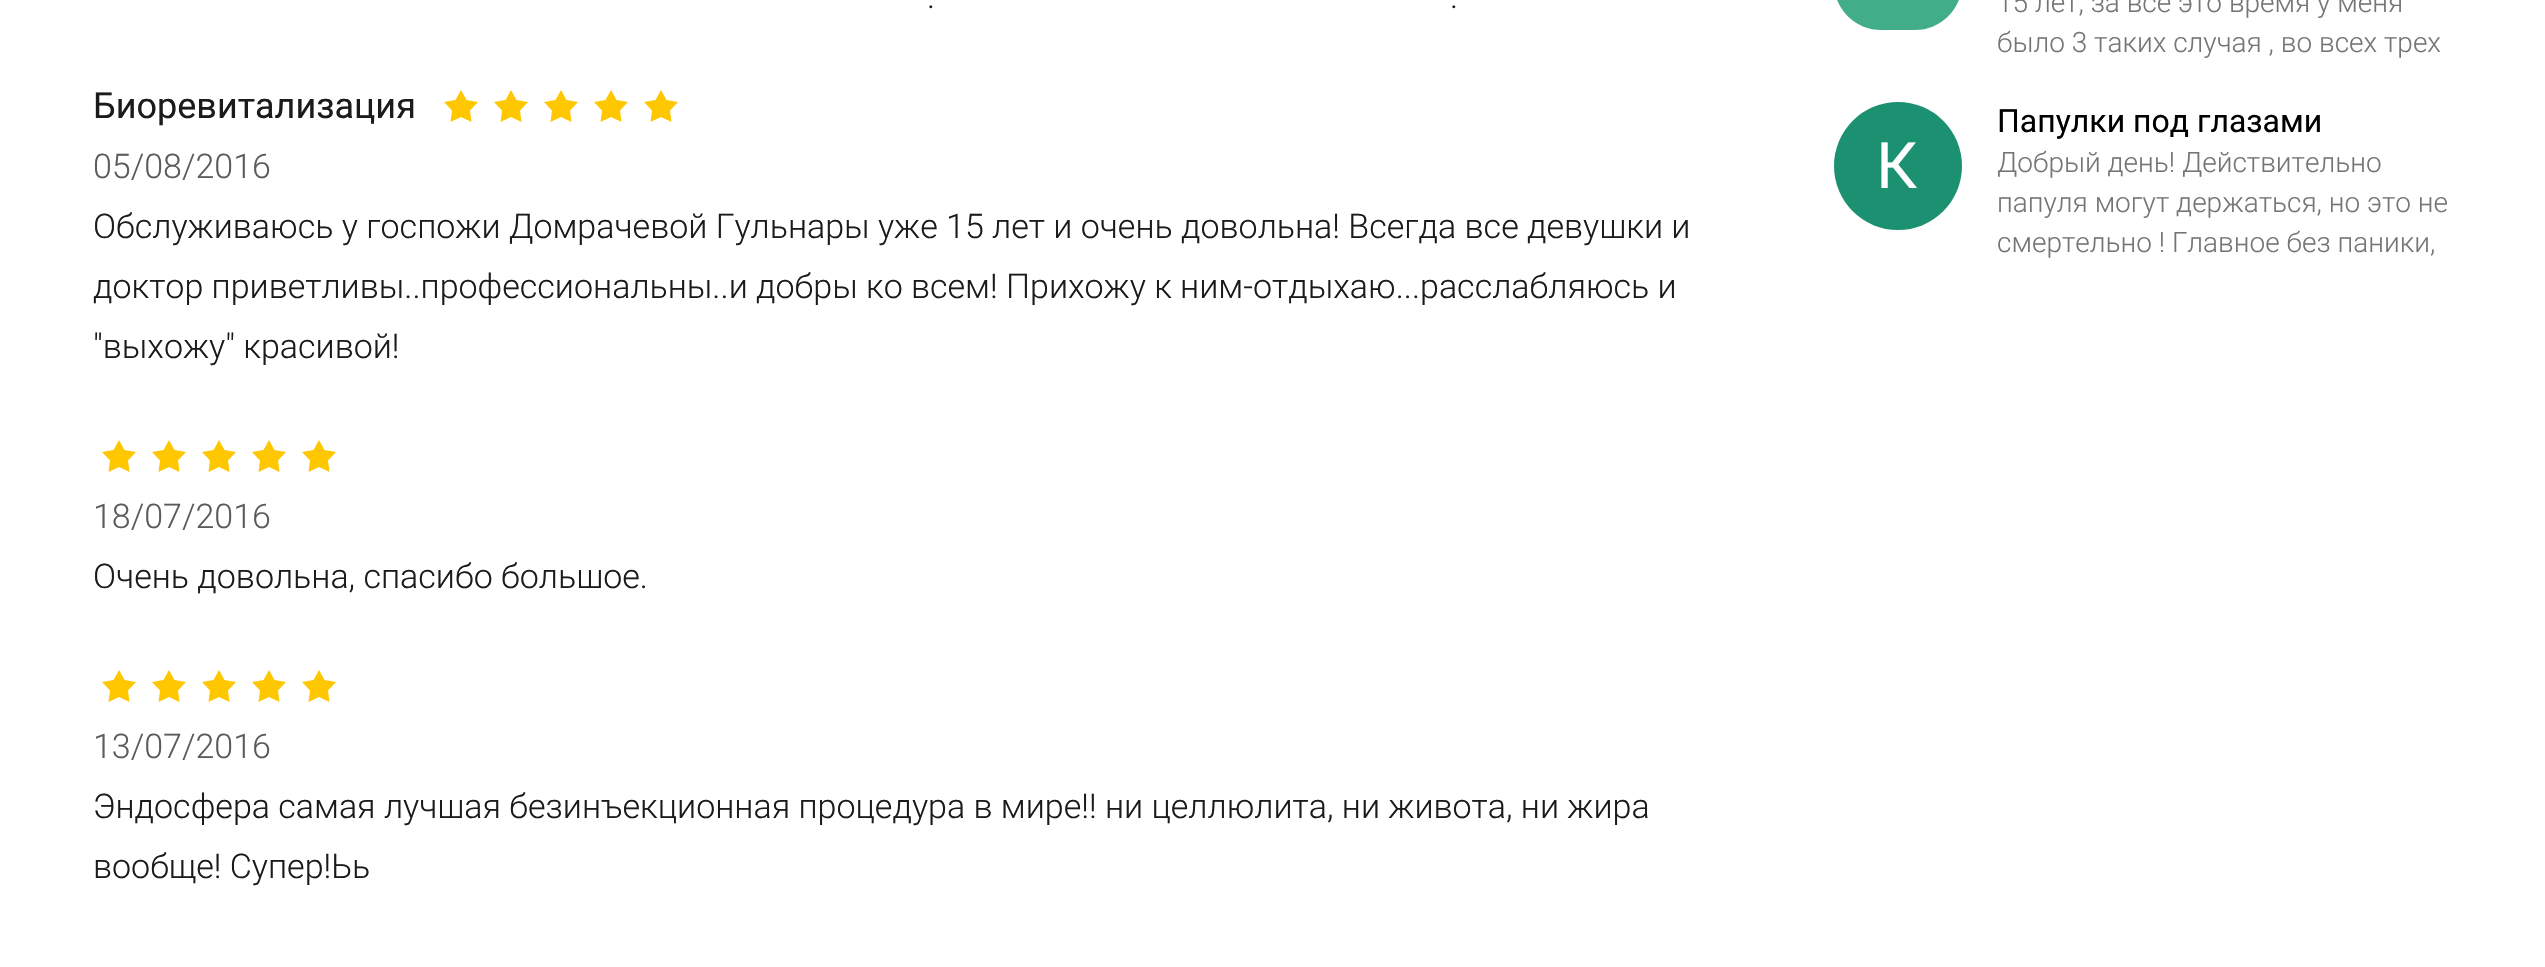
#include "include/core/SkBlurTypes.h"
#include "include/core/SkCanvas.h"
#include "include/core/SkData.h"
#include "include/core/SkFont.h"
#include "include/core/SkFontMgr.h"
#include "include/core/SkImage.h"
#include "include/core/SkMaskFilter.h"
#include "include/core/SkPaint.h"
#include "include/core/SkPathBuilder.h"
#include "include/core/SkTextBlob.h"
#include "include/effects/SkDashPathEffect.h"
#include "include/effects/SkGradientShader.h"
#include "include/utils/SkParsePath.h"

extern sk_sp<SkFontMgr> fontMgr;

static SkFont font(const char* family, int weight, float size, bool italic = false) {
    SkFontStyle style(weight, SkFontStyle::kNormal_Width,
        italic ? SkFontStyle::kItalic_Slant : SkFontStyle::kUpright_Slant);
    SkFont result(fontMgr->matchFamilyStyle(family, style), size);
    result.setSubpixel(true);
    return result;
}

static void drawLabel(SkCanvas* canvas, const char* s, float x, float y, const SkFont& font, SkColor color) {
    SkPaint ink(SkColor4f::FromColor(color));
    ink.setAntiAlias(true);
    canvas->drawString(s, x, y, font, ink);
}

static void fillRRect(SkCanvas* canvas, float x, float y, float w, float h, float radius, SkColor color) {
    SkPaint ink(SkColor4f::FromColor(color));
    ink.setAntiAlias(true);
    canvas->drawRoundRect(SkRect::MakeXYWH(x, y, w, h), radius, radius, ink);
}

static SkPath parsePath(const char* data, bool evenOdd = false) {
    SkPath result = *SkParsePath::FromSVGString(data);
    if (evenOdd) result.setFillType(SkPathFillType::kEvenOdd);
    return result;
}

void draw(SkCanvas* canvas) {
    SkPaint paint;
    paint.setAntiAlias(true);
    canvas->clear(0xFFFFFFFF);
    SkFont font1 = font("Roboto", 300, 34);
    drawLabel(canvas, ".", 927, 8, font1, 0xFF1B1B1B);
    drawLabel(canvas, ".", 1450, 8, font1, 0xFF1B1B1B);
    SkFont font2 = font("Roboto", 400, 36);
    drawLabel(canvas, "Биоревитализация", 93, 118, font2, 0xFF1B1B1B);
    paint.setColor(0xFFFFC700);
    canvas->drawPath(parsePath("M461 90L466.5 100L478 102L470 110.5L471.5 122L461 117L450.5 122L452 110.5L444 102L455.5 100Z"), paint);
    canvas->drawPath(parsePath("M511 90L516.5 100L528 102L520 110.5L521.5 122L511 117L500.5 122L502 110.5L494 102L505.5 100Z"), paint);
    canvas->drawPath(parsePath("M561 90L566.5 100L578 102L570 110.5L571.5 122L561 117L550.5 122L552 110.5L544 102L555.5 100Z"), paint);
    canvas->drawPath(parsePath("M611 90L616.5 100L628 102L620 110.5L621.5 122L611 117L600.5 122L602 110.5L594 102L605.5 100Z"), paint);
    canvas->drawPath(parsePath("M661 90L666.5 100L678 102L670 110.5L671.5 122L661 117L650.5 122L652 110.5L644 102L655.5 100Z"), paint);
    drawLabel(canvas, "05/08/2016", 93, 178, font1, 0xFF5B5B5B);
    drawLabel(canvas, "Обслуживаюсь у госпожи Домрачевой Гульнары уже 15 лет и очень довольна! Всегда все девушки и", 93, 238, font1, 0xFF1B1B1B);
    drawLabel(canvas, "доктор приветливы..профессиональны..и добры ко всем! Прихожу к ним-отдыхаю...расслабляюсь и", 93, 298, font1, 0xFF1B1B1B);
    drawLabel(canvas, "\"выхожу\" красивой!", 93, 358, font1, 0xFF1B1B1B);
    canvas->drawPath(parsePath("M119 440L124.5 450L136 452L128 460.5L129.5 472L119 467L108.5 472L110 460.5L102 452L113.5 450Z"), paint);
    canvas->drawPath(parsePath("M169 440L174.5 450L186 452L178 460.5L179.5 472L169 467L158.5 472L160 460.5L152 452L163.5 450Z"), paint);
    canvas->drawPath(parsePath("M219 440L224.5 450L236 452L228 460.5L229.5 472L219 467L208.5 472L210 460.5L202 452L213.5 450Z"), paint);
    canvas->drawPath(parsePath("M269 440L274.5 450L286 452L278 460.5L279.5 472L269 467L258.5 472L260 460.5L252 452L263.5 450Z"), paint);
    canvas->drawPath(parsePath("M319 440L324.5 450L336 452L328 460.5L329.5 472L319 467L308.5 472L310 460.5L302 452L313.5 450Z"), paint);
    drawLabel(canvas, "18/07/2016", 93, 528, font1, 0xFF5B5B5B);
    drawLabel(canvas, "Очень довольна, спасибо большое.", 93, 588, font1, 0xFF1B1B1B);
    canvas->drawPath(parsePath("M119 670L124.5 680L136 682L128 690.5L129.5 702L119 697L108.5 702L110 690.5L102 682L113.5 680Z"), paint);
    canvas->drawPath(parsePath("M169 670L174.5 680L186 682L178 690.5L179.5 702L169 697L158.5 702L160 690.5L152 682L163.5 680Z"), paint);
    canvas->drawPath(parsePath("M219 670L224.5 680L236 682L228 690.5L229.5 702L219 697L208.5 702L210 690.5L202 682L213.5 680Z"), paint);
    canvas->drawPath(parsePath("M269 670L274.5 680L286 682L278 690.5L279.5 702L269 697L258.5 702L260 690.5L252 682L263.5 680Z"), paint);
    canvas->drawPath(parsePath("M319 670L324.5 680L336 682L328 690.5L329.5 702L319 697L308.5 702L310 690.5L302 682L313.5 680Z"), paint);
    drawLabel(canvas, "13/07/2016", 93, 758, font1, 0xFF5B5B5B);
    drawLabel(canvas, "Эндосфера самая лучшая безинъекционная процедура в мире!! ни целлюлита, ни живота, ни жира", 93, 818, font1, 0xFF1B1B1B);
    drawLabel(canvas, "вообще! Супер!Ьь", 93, 878, font1, 0xFF1B1B1B);
    fillRRect(canvas, 1834, -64, 128, 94, 64, 0xFF42AE89);
    SkFont font3 = font("Roboto", 300, 28);
    drawLabel(canvas, "15 лет, за все это время у меня", 1997, 12, font3, 0xFF757575);
    drawLabel(canvas, "было 3 таких случая , во всех трех", 1997, 52, font3, 0xFF757575);
    SkFont font4 = font("Roboto", 400, 32);
    drawLabel(canvas, "Папулки под глазами", 1997, 132, font4, 0xFF000000);
    paint.setColor(0xFF1B9171);
    canvas->drawCircle(1898, 166, 64, paint);
    SkFont font5 = font("Roboto", 400, 64);
    drawLabel(canvas, "К", 1876, 188, font5, 0xFFFFFFFF);
    drawLabel(canvas, "Добрый день! Действительно", 1997, 172, font3, 0xFF757575);
    drawLabel(canvas, "папуля могут держаться, но это не", 1997, 212, font3, 0xFF757575);
    drawLabel(canvas, "смертельно ! Главное без паники,", 1997, 252, font3, 0xFF757575);
}
